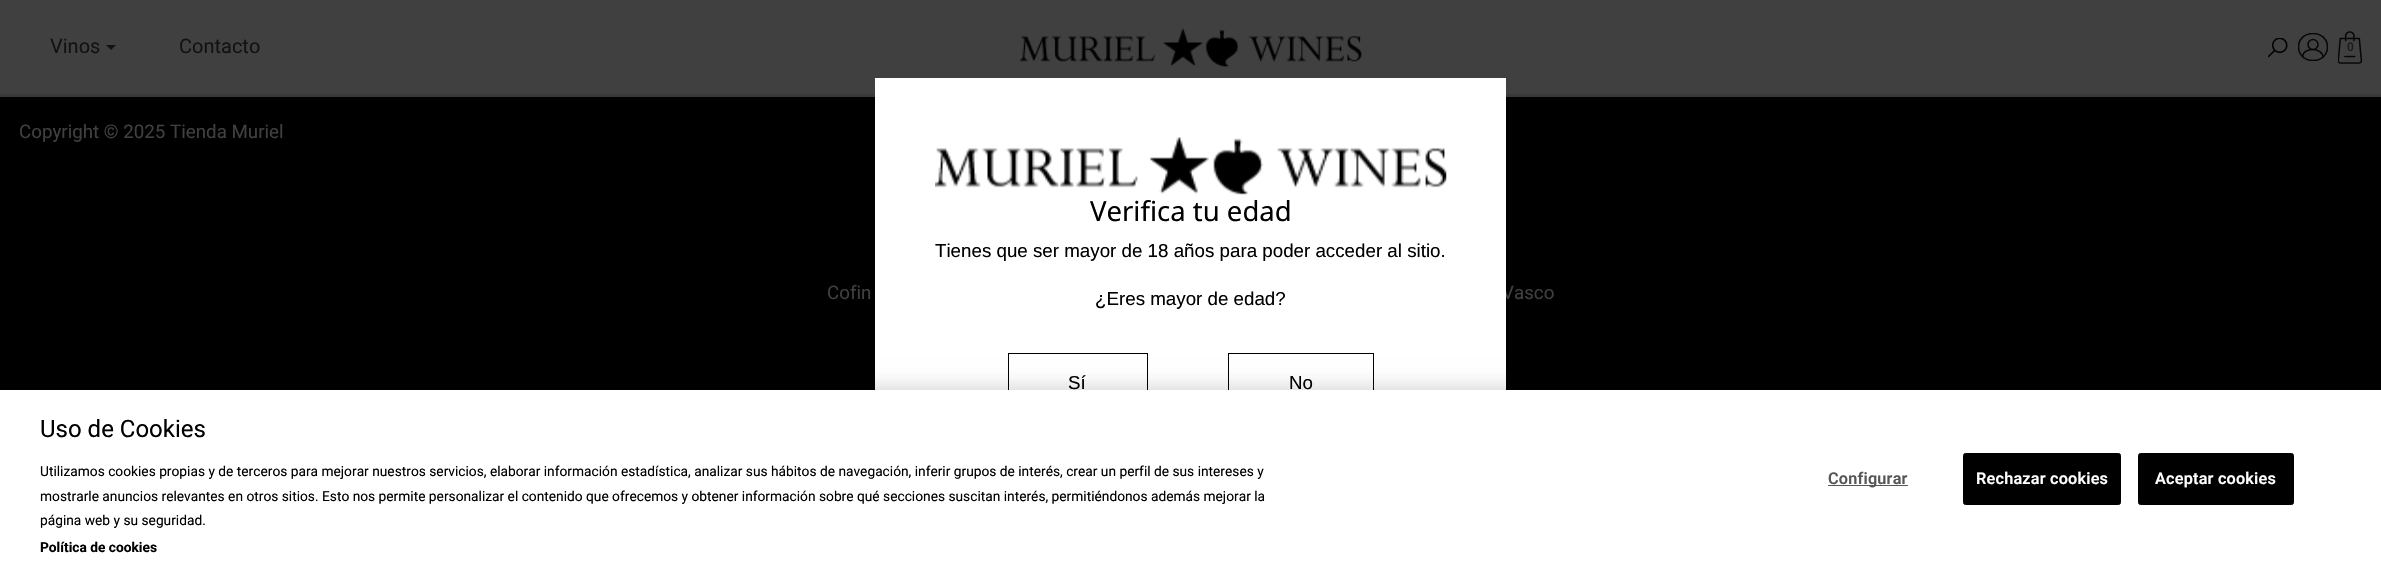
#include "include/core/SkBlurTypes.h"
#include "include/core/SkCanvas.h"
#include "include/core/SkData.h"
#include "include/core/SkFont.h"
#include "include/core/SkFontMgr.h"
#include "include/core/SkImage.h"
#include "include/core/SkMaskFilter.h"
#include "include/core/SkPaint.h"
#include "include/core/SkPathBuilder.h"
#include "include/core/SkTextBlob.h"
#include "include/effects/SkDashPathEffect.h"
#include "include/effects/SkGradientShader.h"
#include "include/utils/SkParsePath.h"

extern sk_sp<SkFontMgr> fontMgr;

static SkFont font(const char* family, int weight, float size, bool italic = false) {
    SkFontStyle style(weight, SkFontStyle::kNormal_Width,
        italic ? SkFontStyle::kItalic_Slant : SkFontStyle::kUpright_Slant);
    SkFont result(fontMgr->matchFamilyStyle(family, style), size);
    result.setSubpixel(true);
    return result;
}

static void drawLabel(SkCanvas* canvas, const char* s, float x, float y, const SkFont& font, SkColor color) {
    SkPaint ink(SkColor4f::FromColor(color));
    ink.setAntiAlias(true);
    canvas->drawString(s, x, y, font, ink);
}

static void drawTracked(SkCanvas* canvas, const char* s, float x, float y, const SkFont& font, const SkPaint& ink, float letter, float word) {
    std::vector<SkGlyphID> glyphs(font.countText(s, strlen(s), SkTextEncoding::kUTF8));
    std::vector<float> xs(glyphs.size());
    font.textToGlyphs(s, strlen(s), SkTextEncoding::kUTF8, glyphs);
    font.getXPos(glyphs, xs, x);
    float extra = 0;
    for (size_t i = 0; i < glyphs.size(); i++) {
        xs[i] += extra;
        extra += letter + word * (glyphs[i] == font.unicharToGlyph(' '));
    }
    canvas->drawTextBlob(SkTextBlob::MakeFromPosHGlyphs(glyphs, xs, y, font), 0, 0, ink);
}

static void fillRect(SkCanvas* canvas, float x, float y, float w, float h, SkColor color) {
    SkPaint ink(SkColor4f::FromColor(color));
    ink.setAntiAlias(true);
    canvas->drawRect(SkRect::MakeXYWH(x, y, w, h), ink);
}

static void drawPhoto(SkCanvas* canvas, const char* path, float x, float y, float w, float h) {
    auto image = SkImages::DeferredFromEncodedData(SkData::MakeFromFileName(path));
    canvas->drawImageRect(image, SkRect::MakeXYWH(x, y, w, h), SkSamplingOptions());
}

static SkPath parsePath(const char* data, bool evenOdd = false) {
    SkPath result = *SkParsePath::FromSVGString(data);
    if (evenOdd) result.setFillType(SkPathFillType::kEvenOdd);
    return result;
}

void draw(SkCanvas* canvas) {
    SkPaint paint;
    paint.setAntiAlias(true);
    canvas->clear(0xFF000000);
    fillRect(canvas, 0, 0, 2381, 94, 0xFF404040);
    fillRect(canvas, 0, 94, 2381, 3, 0xFF393939);
    SkFont font1 = font("Roboto", 400, 20);
    drawLabel(canvas, "Vinos", 50, 53, font1, 0xFF121212);
    paint.setColor(0xFF121212);
    canvas->drawPath(parsePath("M106 45H116L111 50Z"), paint);
    drawLabel(canvas, "Contacto", 179, 53, font1, 0xFF121212);
    drawPhoto(canvas, "assets/img1.png", 1019, 28, 343, 39);
    drawPhoto(canvas, "assets/img2.png", 2268, 38, 20, 20);
    canvas->save();
    canvas->clipRect(SkRect::MakeXYWH(2298, 33, 30, 28));
    paint.setStroke(true);
    paint.setStrokeWidth(1.6f);
    paint.setColor(0xFF070707);
    canvas->drawPath(parsePath("M2327.5 47C2327.5 65 2298.5 65 2298.5 47C2298.5 29 2327.5 29 2327.5 47Z"), paint);
    canvas->restore();
    canvas->drawCircle(2313, 44.5f, 5, paint);
    canvas->drawPath(parsePath("M2323 57.5C2323 47 2302.5 47 2302.5 57"), paint);
    drawPhoto(canvas, "assets/img3.png", 2338, 31, 25, 33);
    SkFont font2 = font("Roboto", 600, 12);
    drawLabel(canvas, "0", 2347, 51, font2, 0xFF1C1C1C);
    SkFont font3 = font("Roboto", 400, 18.75f);
    drawLabel(canvas, "Copyright © 2025 Tienda Muriel", 19, 138, font3, 0xFF404040);
    drawLabel(canvas, "Vasco", 1502, 299, font3, 0xFF404040);
    fillRect(canvas, 875, 78, 631, 312, 0xFFFFFFFF);
    drawPhoto(canvas, "assets/img4.png", 935, 137, 512, 58);
    SkFont font4 = font("Noto Sans", 400, 27.5f);
    drawLabel(canvas, "Verifica tu edad", 1090, 221, font4, 0xFF000000);
    SkFont font5 = font("Liberation Sans", 400, 18.75f);
    drawLabel(canvas, "Tienes que ser mayor de 18 años para poder acceder al sitio.", 935, 257, font5, 0xFF000000);
    drawLabel(canvas, "¿Eres mayor de edad?", 1095, 305, font5, 0xFF000000);
    paint.setStrokeWidth(1);
    paint.setColor(0xFF000000);
    canvas->drawRect(SkRect::MakeXYWH(1008.5f, 353.5f, 139, 60), paint);
    drawLabel(canvas, "Sí", 1068, 389, font5, 0xFF000000);
    canvas->drawRect(SkRect::MakeXYWH(1228.5f, 353.5f, 145, 60), paint);
    drawLabel(canvas, "No", 1289, 389, font5, 0xFF000000);
    drawLabel(canvas, "Cofin", 827, 299, font3, 0xFF404040);
    paint.setStroke(false);
    paint.setColor(0x33000000);
    paint.setMaskFilter(SkMaskFilter::MakeBlur(kNormal_SkBlurStyle, 11));
    canvas->drawRect(SkRect::MakeXYWH(0, 390, 2381, 181), paint);
    paint.setMaskFilter(nullptr);
    fillRect(canvas, 0, 390, 2381, 181, 0xFFFFFFFF);
    SkFont font6 = font("Roboto", 400, 24);
    drawLabel(canvas, "Uso de Cookies", 40, 437, font6, 0xFF000000);
    SkFont font7 = font("Roboto", 400, 13.75f);
    drawLabel(canvas, "Utilizamos cookies propias y de terceros para mejorar nuestros servicios, elaborar información estadística, analizar sus hábitos de navegación, inferir grupos de interés, crear un perfil de sus intereses y", 40, 476, font7, 0xFF000000);
    drawLabel(canvas, "mostrarle anuncios relevantes en otros sitios. Esto nos permite personalizar el contenido que ofrecemos y obtener información sobre qué secciones suscitan interés, permitiéndonos además mejorar la", 40, 501, font7, 0xFF000000);
    drawLabel(canvas, "página web y su seguridad.", 40, 525, font7, 0xFF000000);
    SkFont font8 = font("Roboto", 700, 13.75f);
    drawLabel(canvas, "Política de cookies", 40, 552, font8, 0xFF000000);
    fillRect(canvas, 1828, 485, 80, 1, 0xFF565656);
    SkFont font9 = font("Roboto", 600, 16.25f);
    paint.setColor(0xFF565656);
    drawTracked(canvas, "Configurar", 1828, 484, font9, paint, 0.2f, 0);
    paint.setColor(0xFF000000);
    canvas->drawRoundRect(SkRect::MakeXYWH(1963.5f, 453.5f, 157, 51), 2, 2, paint);
    paint.setStroke(true);
    canvas->drawRoundRect(SkRect::MakeXYWH(1963.5f, 453.5f, 157, 51), 2, 2, paint);
    paint.setStroke(false);
    paint.setColor(0xFFFFFFFF);
    drawTracked(canvas, "Rechazar cookies", 1976, 484, font9, paint, 0.2f, 0);
    paint.setColor(0xFF000000);
    canvas->drawRoundRect(SkRect::MakeXYWH(2138.5f, 453.5f, 155, 51), 2, 2, paint);
    paint.setStroke(true);
    canvas->drawRoundRect(SkRect::MakeXYWH(2138.5f, 453.5f, 155, 51), 2, 2, paint);
    paint.setStroke(false);
    paint.setColor(0xFFFFFFFF);
    drawTracked(canvas, "Aceptar cookies", 2155, 484, font9, paint, 0.2f, 0);
}
